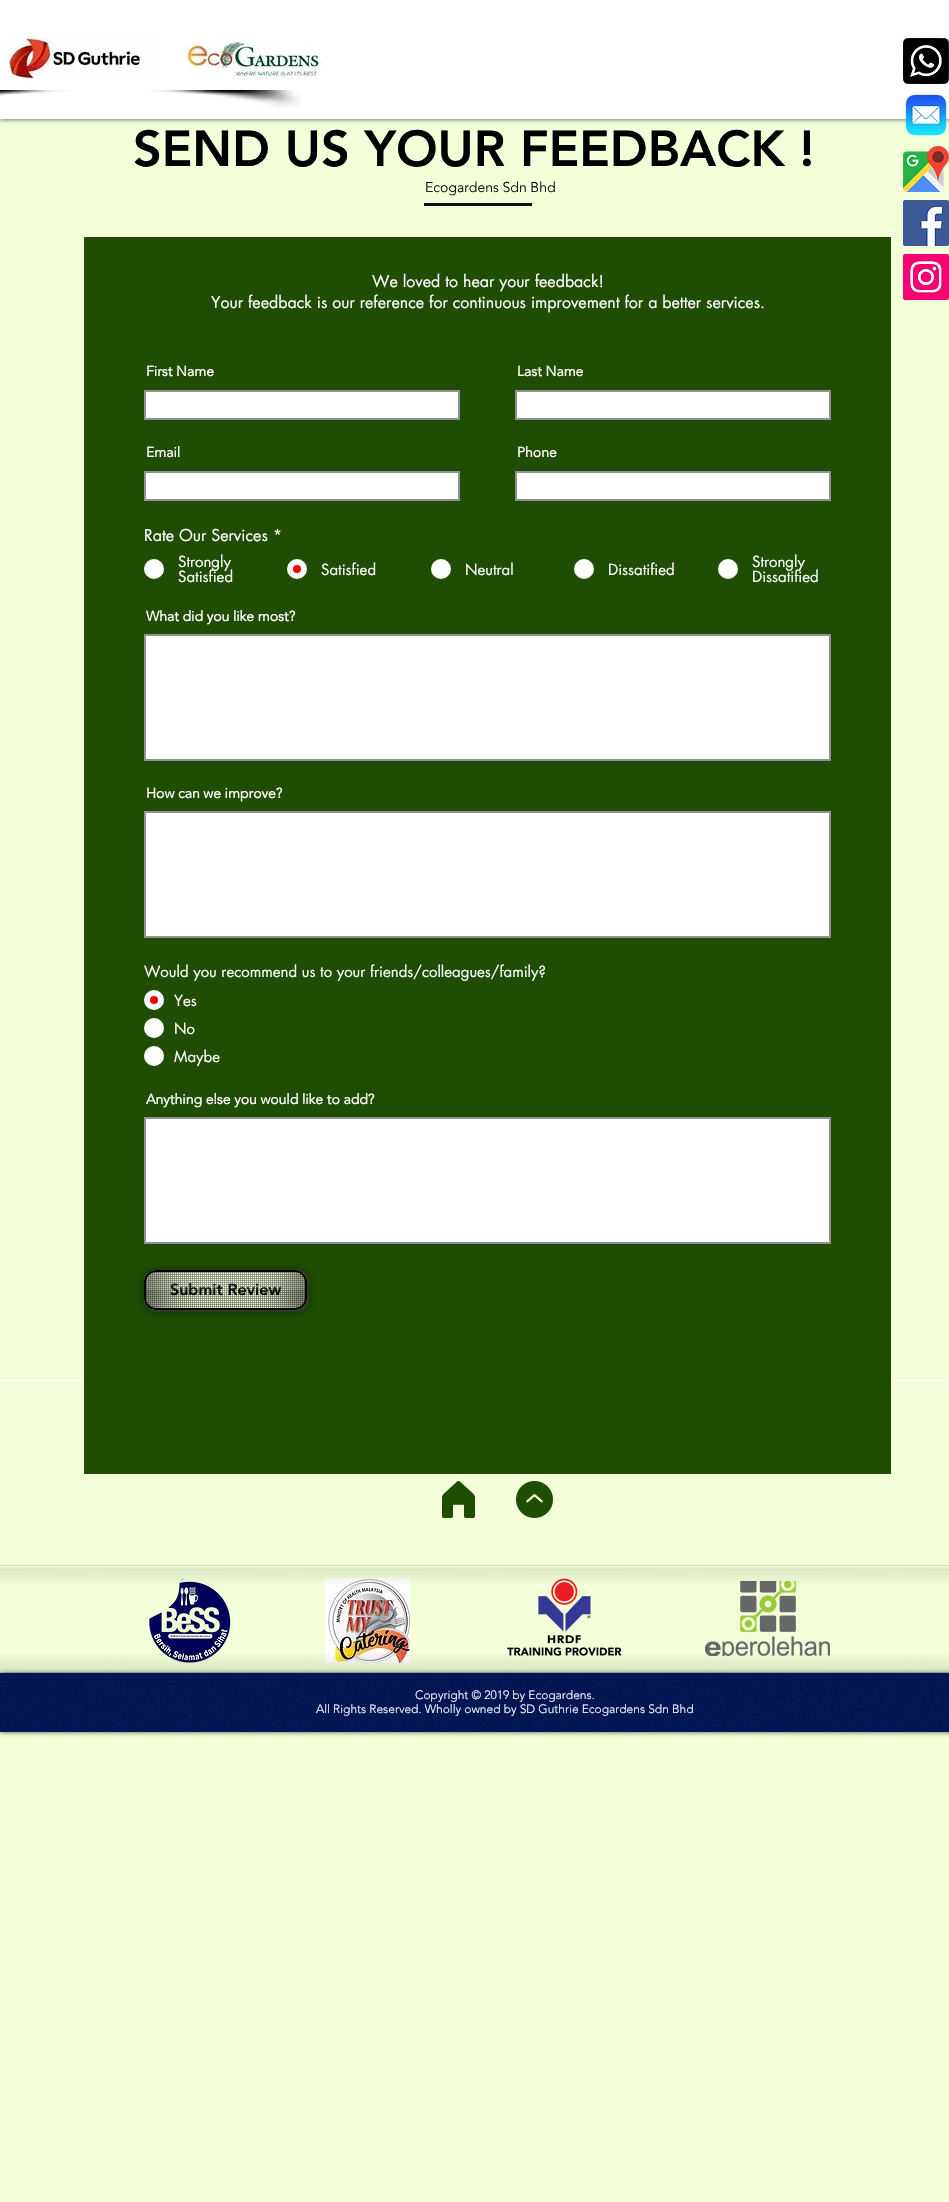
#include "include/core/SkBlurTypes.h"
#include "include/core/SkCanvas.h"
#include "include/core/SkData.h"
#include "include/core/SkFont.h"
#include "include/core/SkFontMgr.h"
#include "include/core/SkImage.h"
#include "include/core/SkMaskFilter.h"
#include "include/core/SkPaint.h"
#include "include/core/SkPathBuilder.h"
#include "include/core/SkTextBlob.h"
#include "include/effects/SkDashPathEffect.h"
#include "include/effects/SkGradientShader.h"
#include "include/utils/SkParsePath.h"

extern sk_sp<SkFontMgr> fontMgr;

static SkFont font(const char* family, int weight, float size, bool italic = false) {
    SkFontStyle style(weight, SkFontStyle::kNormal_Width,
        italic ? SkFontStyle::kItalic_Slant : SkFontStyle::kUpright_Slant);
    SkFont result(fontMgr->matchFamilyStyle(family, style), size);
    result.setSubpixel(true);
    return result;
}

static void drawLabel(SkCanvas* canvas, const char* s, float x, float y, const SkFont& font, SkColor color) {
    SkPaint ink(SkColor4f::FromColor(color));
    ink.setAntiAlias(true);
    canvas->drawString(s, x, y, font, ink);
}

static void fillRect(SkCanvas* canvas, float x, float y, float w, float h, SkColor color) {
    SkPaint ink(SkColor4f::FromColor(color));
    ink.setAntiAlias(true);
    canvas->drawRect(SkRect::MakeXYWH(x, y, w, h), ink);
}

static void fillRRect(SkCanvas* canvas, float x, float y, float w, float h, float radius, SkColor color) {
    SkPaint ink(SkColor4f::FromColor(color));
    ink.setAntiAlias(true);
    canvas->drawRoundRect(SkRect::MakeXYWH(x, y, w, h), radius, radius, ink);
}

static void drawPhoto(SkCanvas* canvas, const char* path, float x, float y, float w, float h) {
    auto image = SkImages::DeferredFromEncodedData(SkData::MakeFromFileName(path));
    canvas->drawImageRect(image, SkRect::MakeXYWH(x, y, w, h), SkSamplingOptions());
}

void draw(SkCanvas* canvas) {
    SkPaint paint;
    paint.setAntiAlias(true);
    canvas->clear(0xFFF2FFD8);
    paint.setColor(0xB3000000);
    paint.setMaskFilter(SkMaskFilter::MakeBlur(kNormal_SkBlurStyle, 2.5f));
    canvas->drawRect(SkRect::MakeXYWH(0, 0, 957, 119), paint);
    paint.setMaskFilter(nullptr);
    fillRect(canvas, 0, 0, 949, 119, 0xFFFFFFFF);
    drawPhoto(canvas, "assets/img1.png", 6, 37, 316, 42);
    drawPhoto(canvas, "assets/img2.png", 0, 90, 71, 6);
    drawPhoto(canvas, "assets/img3.png", 147, 90, 154, 18);
    SkFont font1 = font("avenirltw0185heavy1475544", 900, 50);
    drawLabel(canvas, "SEND US YOUR FEEDBACK !", 133, 166, font1, 0xFF000000);
    SkFont font2 = font("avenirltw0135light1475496", 300, 14);
    drawLabel(canvas, "Ecogardens Sdn Bhd", 425, 192, font2, 0xFF000000);
    fillRect(canvas, 424, 203, 108, 3, 0xFF0F0F0F);
    fillRect(canvas, 0, 1380, 949, 1, 0xFFFFFFFF);
    fillRect(canvas, 84, 237, 807, 1237, 0xFF1F4D03);
    SkFont font3 = font("futura", 400, 16);
    drawLabel(canvas, "We loved to hear your feedback!", 372, 287, font3, 0xFFFFFFFF);
    drawLabel(canvas, "Your feedback is our reference for continuous improvement for a better services.", 211, 308, font3, 0xFFFFFFFF);
    SkFont font4 = font("avenirltw0135light1475496", 700, 14);
    drawLabel(canvas, "First Name", 146, 376, font4, 0xFFFFFFFF);
    paint.setColor(0xFFFFFFFF);
    canvas->drawRect(SkRect::MakeXYWH(145, 391, 314, 28), paint);
    paint.setStroke(true);
    paint.setStrokeWidth(2);
    paint.setColor(0xFF919191);
    canvas->drawRect(SkRect::MakeXYWH(145, 391, 314, 28), paint);
    drawLabel(canvas, "Last Name", 517, 376, font4, 0xFFFFFFFF);
    paint.setStroke(false);
    paint.setColor(0xFFFFFFFF);
    canvas->drawRect(SkRect::MakeXYWH(516, 391, 314, 28), paint);
    paint.setStroke(true);
    paint.setColor(0xFF919191);
    canvas->drawRect(SkRect::MakeXYWH(516, 391, 314, 28), paint);
    drawLabel(canvas, "Email", 146, 457, font4, 0xFFFFFFFF);
    paint.setStroke(false);
    paint.setColor(0xFFFFFFFF);
    canvas->drawRect(SkRect::MakeXYWH(145, 472, 314, 28), paint);
    paint.setStroke(true);
    paint.setColor(0xFF919191);
    canvas->drawRect(SkRect::MakeXYWH(145, 472, 314, 28), paint);
    drawLabel(canvas, "Phone", 517, 457, font4, 0xFFFFFFFF);
    paint.setStroke(false);
    paint.setColor(0xFFFFFFFF);
    canvas->drawRect(SkRect::MakeXYWH(516, 472, 314, 28), paint);
    paint.setStroke(true);
    paint.setColor(0xFF919191);
    canvas->drawRect(SkRect::MakeXYWH(516, 472, 314, 28), paint);
    drawLabel(canvas, "Rate Our Services *", 144, 541, font3, 0xFFFFFFFF);
    paint.setStroke(false);
    paint.setColor(0xFFFFFFFF);
    canvas->drawCircle(154, 569, 10, paint);
    SkFont font5 = font("futura", 400, 15);
    drawLabel(canvas, "Strongly", 178, 567, font5, 0xFFFFFFFF);
    drawLabel(canvas, "Satisfied", 178, 582, font5, 0xFFFFFFFF);
    canvas->drawCircle(297, 569, 10, paint);
    paint.setColor(0xFFFF0000);
    canvas->drawCircle(297, 569, 4, paint);
    drawLabel(canvas, "Satisfied", 321, 575, font5, 0xFFFFFFFF);
    paint.setColor(0xFFFFFFFF);
    canvas->drawCircle(441, 569, 10, paint);
    drawLabel(canvas, "Neutral", 465, 575, font5, 0xFFFFFFFF);
    canvas->drawCircle(584, 569, 10, paint);
    drawLabel(canvas, "Dissatified", 608, 575, font5, 0xFFFFFFFF);
    canvas->drawCircle(728, 569, 10, paint);
    drawLabel(canvas, "Strongly", 752, 567, font5, 0xFFFFFFFF);
    drawLabel(canvas, "Dissatified", 752, 582, font5, 0xFFFFFFFF);
    drawLabel(canvas, "What did you like most?", 146, 621, font4, 0xFFFFFFFF);
    canvas->drawRect(SkRect::MakeXYWH(145, 635, 685, 125), paint);
    paint.setStroke(true);
    paint.setColor(0xFF919191);
    canvas->drawRect(SkRect::MakeXYWH(145, 635, 685, 125), paint);
    drawLabel(canvas, "How can we improve?", 146, 798, font4, 0xFFFFFFFF);
    paint.setStroke(false);
    paint.setColor(0xFFFFFFFF);
    canvas->drawRect(SkRect::MakeXYWH(145, 812, 685, 125), paint);
    paint.setStroke(true);
    paint.setColor(0xFF919191);
    canvas->drawRect(SkRect::MakeXYWH(145, 812, 685, 125), paint);
    drawLabel(canvas, "Would you recommend us to your friends/colleagues/family?", 144, 977, font5, 0xFFFFFFFF);
    paint.setStroke(false);
    paint.setColor(0xFFFFFFFF);
    canvas->drawCircle(154, 1000, 10, paint);
    paint.setColor(0xFFFF0000);
    canvas->drawCircle(154, 1000, 4, paint);
    drawLabel(canvas, "Yes", 174, 1006, font5, 0xFFFFFFFF);
    paint.setColor(0xFFFFFFFF);
    canvas->drawCircle(154, 1028, 10, paint);
    drawLabel(canvas, "No", 174, 1034, font5, 0xFFFFFFFF);
    canvas->drawCircle(154, 1056, 10, paint);
    drawLabel(canvas, "Maybe", 174, 1062, font5, 0xFFFFFFFF);
    drawLabel(canvas, "Anything else you would like to add?", 146, 1104, font4, 0xFFFFFFFF);
    canvas->drawRect(SkRect::MakeXYWH(145, 1118, 685, 125), paint);
    paint.setStroke(true);
    paint.setColor(0xFF919191);
    canvas->drawRect(SkRect::MakeXYWH(145, 1118, 685, 125), paint);
    paint.setStroke(false);
    paint.setColor(0x4DFFFFFF);
    paint.setMaskFilter(SkMaskFilter::MakeBlur(kNormal_SkBlurStyle, 1.5f));
    canvas->drawRoundRect(SkRect::MakeXYWH(145, 1271, 163, 40), 12, 12, paint);
    paint.setMaskFilter(nullptr);
    paint.setColor(0x99000000);
    paint.setMaskFilter(SkMaskFilter::MakeBlur(kNormal_SkBlurStyle, 3));
    canvas->drawRoundRect(SkRect::MakeXYWH(144, 1270, 165, 42), 13, 13, paint);
    paint.setMaskFilter(nullptr);
    fillRRect(canvas, 144, 1270, 163, 40, 12, 0xFFF2FFD8);
    drawPhoto(canvas, "assets/img4.png", 144, 1270, 163, 40);
    paint.setStroke(true);
    paint.setColor(0xFF000000);
    canvas->drawRoundRect(SkRect::MakeXYWH(145, 1271, 161, 38), 11, 11, paint);
    drawPhoto(canvas, "assets/img5.png", 146, 1272, 50, 36);
    drawPhoto(canvas, "assets/img7.png", 255, 1272, 50, 36);
    SkFont font6 = font("avenirltw0185heavy1475544", 900, 16);
    drawLabel(canvas, "Submit Review", 170, 1295, font6, 0xFF000000);
    drawPhoto(canvas, "assets/img6.png", 146, 1272, 159, 18);
    drawPhoto(canvas, "assets/img8.png", 442, 1481, 33, 37);
    drawPhoto(canvas, "assets/img9.png", 516, 1481, 37, 37);
    drawPhoto(canvas, "assets/img11.png", 149, 1578, 82, 85);
    drawPhoto(canvas, "assets/img12.png", 325, 1578, 85, 85);
    drawPhoto(canvas, "assets/img13.png", 507, 1578, 115, 78);
    drawPhoto(canvas, "assets/img10.png", 0, 1565, 949, 19);
    drawPhoto(canvas, "assets/img14.png", 705, 1581, 125, 75);
    drawPhoto(canvas, "assets/img15.png", 0, 1654, 949, 19);
    drawPhoto(canvas, "assets/img16.png", 903, 38, 46, 46);
    drawPhoto(canvas, "assets/img17.png", 905, 94, 42, 42);
    drawPhoto(canvas, "assets/img18.png", 903, 146, 46, 46);
    drawPhoto(canvas, "assets/img19.png", 903, 200, 46, 46);
    drawPhoto(canvas, "assets/img20.png", 903, 254, 46, 46);
    paint.setStroke(false);
    paint.setColor(0xB3000000);
    paint.setMaskFilter(SkMaskFilter::MakeBlur(kNormal_SkBlurStyle, 2.5f));
    canvas->drawRect(SkRect::MakeXYWH(0, 1673, 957, 59), paint);
    paint.setMaskFilter(nullptr);
    fillRect(canvas, 0, 1673, 949, 59, 0xFF001455);
    drawPhoto(canvas, "assets/img21.png", 0, 1673, 949, 59);
    SkFont font7 = font("avenirltw0135light1475496", 300, 12);
    drawLabel(canvas, "Copyright © 2019 by Ecogardens.", 415, 1699, font7, 0xFFFFFFFF);
    drawLabel(canvas, "All Rights Reserved. Wholly owned by SD Guthrie Ecogardens Sdn Bhd", 316, 1713, font7, 0xFFFFFFFF);
}
